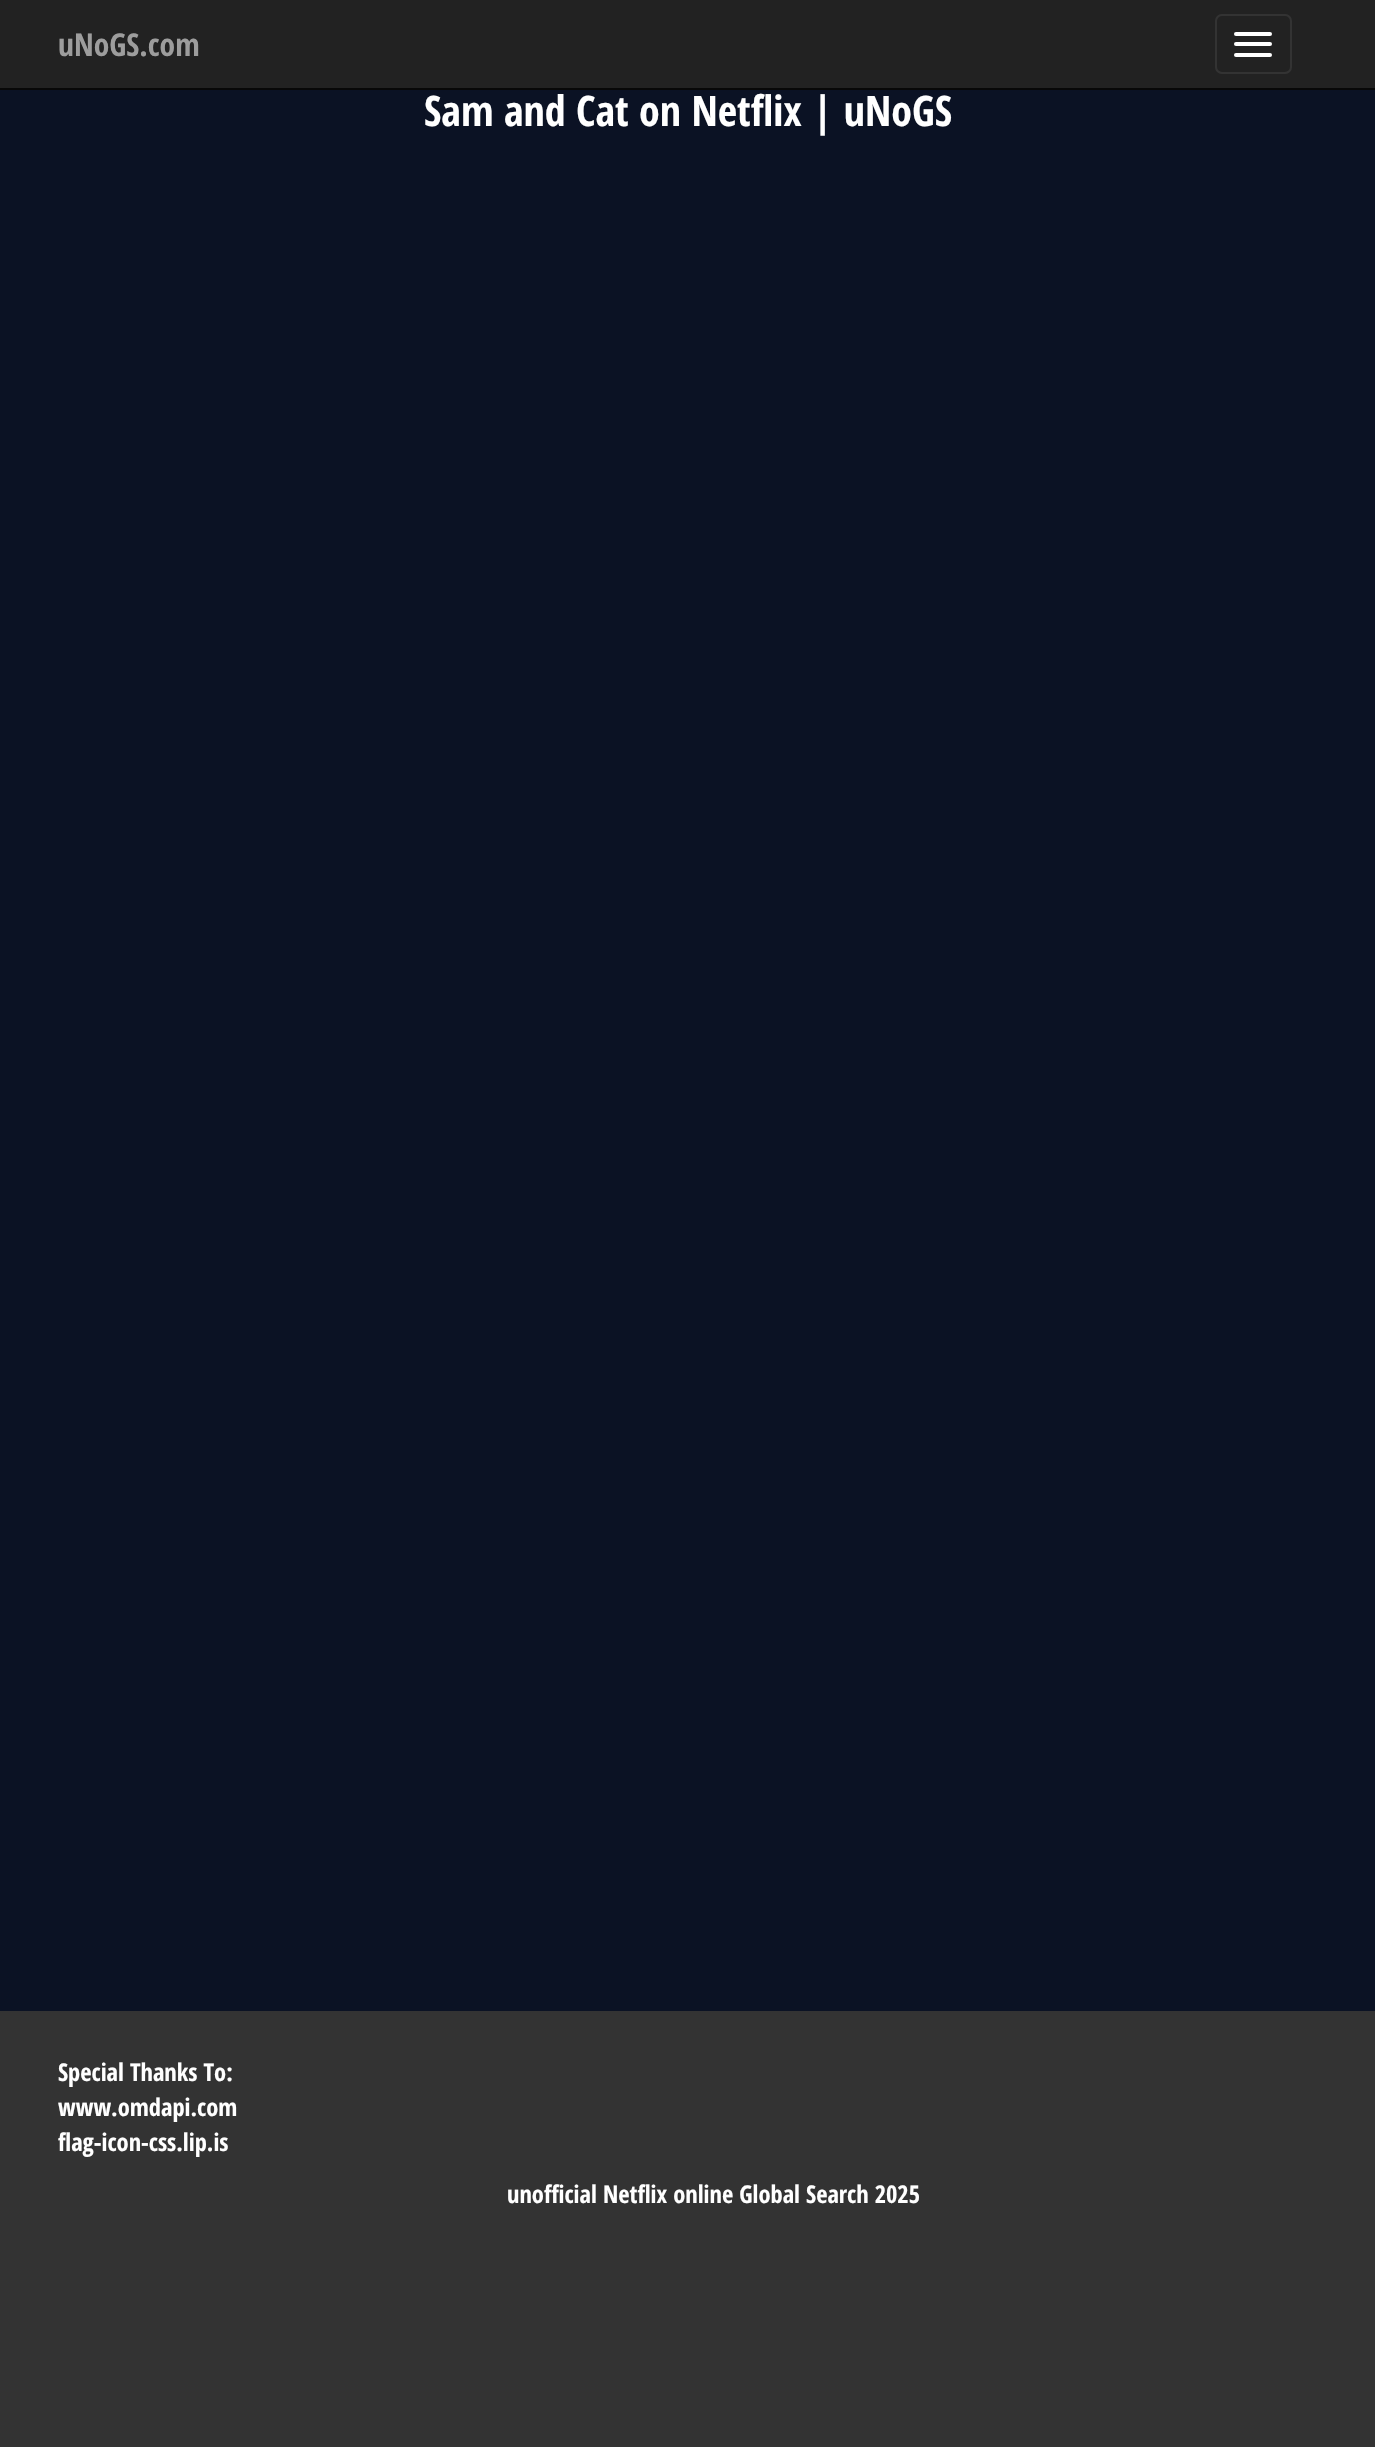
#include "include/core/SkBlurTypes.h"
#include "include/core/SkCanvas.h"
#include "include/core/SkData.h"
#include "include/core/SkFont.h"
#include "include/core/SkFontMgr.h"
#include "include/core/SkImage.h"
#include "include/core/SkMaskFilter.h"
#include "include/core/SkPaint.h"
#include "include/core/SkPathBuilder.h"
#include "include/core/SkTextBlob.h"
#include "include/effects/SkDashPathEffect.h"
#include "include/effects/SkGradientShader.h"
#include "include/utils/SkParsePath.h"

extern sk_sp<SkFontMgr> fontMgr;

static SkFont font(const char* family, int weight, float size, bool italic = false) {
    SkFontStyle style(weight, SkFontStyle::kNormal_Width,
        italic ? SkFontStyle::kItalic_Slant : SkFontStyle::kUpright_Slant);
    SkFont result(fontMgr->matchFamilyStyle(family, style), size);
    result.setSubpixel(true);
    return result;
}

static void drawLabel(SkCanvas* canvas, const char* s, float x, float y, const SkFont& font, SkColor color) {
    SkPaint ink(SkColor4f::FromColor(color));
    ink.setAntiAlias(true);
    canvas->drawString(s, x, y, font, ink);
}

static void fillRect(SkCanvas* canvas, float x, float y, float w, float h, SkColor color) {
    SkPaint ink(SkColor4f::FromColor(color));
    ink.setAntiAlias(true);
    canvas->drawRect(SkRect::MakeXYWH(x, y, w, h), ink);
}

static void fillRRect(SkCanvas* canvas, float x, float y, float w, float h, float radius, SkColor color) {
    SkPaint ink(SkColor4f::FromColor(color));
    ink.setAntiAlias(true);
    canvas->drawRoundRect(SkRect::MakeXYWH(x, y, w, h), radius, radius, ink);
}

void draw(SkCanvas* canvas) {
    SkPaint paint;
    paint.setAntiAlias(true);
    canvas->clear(0xFF0B1224);
    fillRect(canvas, 0, 0, 1375, 88, 0xFF222222);
    fillRect(canvas, 0, 88, 1375, 2, 0xFF080808);
    SkFont font1 = font("Open Sans Condensed", 700, 31.5f);
    drawLabel(canvas, "uNoGS.com", 58, 56, font1, 0xFF9D9D9D);
    paint.setStroke(true);
    paint.setStrokeWidth(2);
    paint.setColor(0xFF333333);
    canvas->drawRoundRect(SkRect::MakeXYWH(1216, 15, 75, 58), 6, 6, paint);
    fillRRect(canvas, 1234, 32, 38, 4, 2, 0xFFFFFFFF);
    fillRRect(canvas, 1234, 42, 38, 4, 2, 0xFFFFFFFF);
    fillRRect(canvas, 1234, 53, 38, 4, 2, 0xFFFFFFFF);
    SkFont font2 = font("Open Sans Condensed", 700, 42);
    drawLabel(canvas, "Sam and Cat on Netflix | uNoGS", 424, 126, font2, 0xFFFFFFFF);
    fillRect(canvas, 0, 2011, 1375, 436, 0xFF333333);
    SkFont font3 = font("Open Sans Condensed", 700, 24.5f);
    drawLabel(canvas, "Special Thanks To:", 58, 2081, font3, 0xFFFFFFFF);
    drawLabel(canvas, "www.omdapi.com", 58, 2116, font3, 0xFFFFFFFF);
    drawLabel(canvas, "flag-icon-css.lip.is", 58, 2151, font3, 0xFFFFFFFF);
    drawLabel(canvas, "unofficial Netflix online Global Search 2025", 507, 2203, font3, 0xFFFFFFFF);
}
